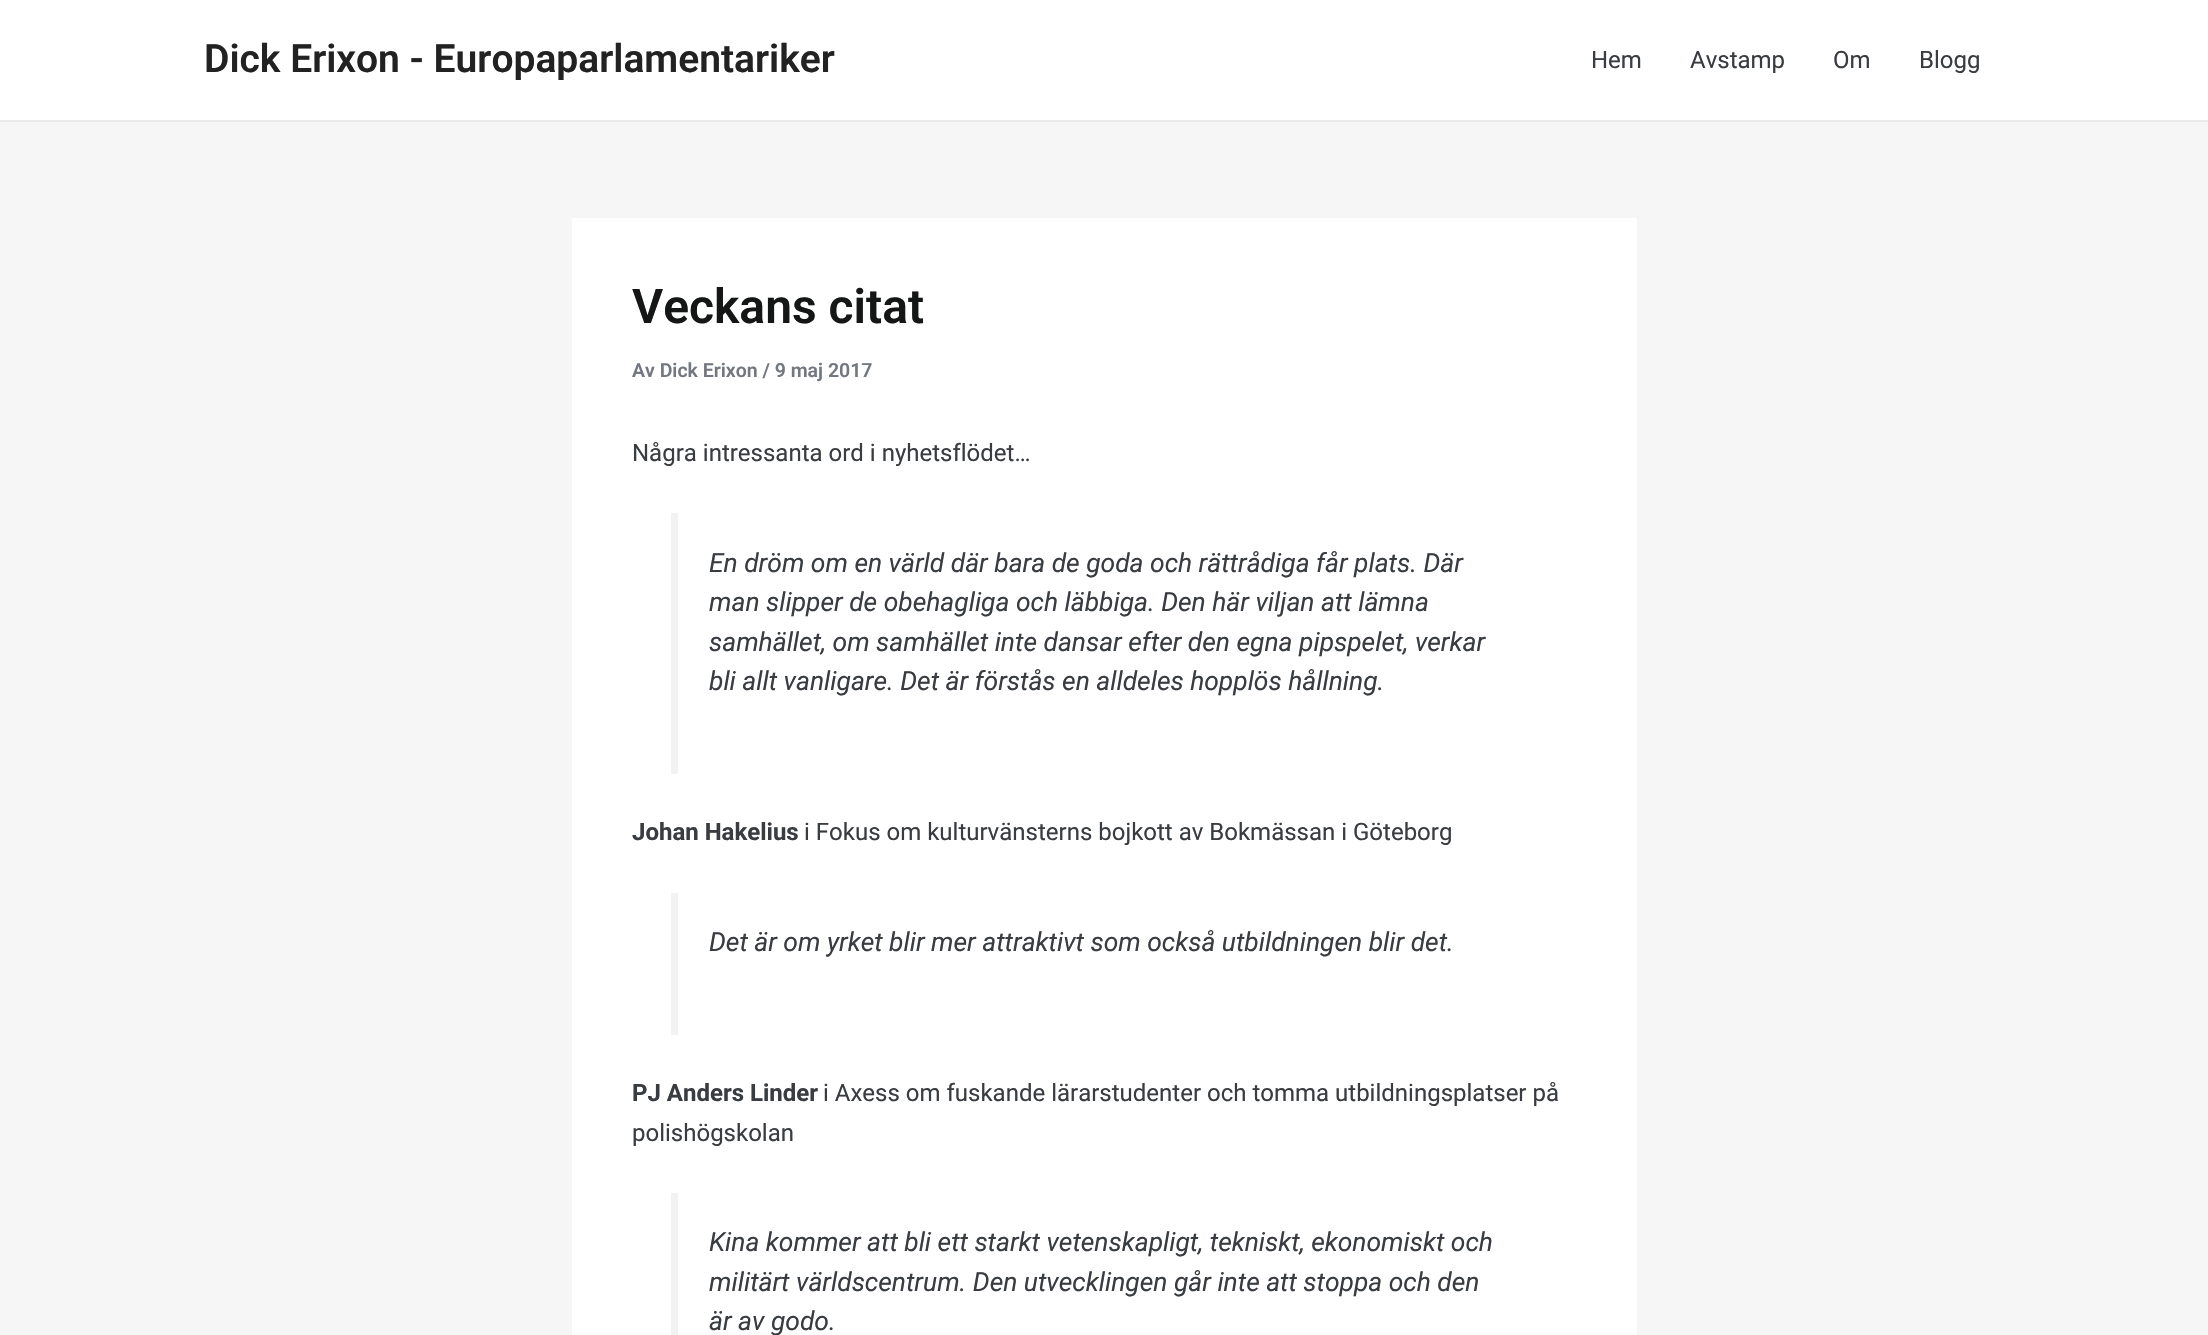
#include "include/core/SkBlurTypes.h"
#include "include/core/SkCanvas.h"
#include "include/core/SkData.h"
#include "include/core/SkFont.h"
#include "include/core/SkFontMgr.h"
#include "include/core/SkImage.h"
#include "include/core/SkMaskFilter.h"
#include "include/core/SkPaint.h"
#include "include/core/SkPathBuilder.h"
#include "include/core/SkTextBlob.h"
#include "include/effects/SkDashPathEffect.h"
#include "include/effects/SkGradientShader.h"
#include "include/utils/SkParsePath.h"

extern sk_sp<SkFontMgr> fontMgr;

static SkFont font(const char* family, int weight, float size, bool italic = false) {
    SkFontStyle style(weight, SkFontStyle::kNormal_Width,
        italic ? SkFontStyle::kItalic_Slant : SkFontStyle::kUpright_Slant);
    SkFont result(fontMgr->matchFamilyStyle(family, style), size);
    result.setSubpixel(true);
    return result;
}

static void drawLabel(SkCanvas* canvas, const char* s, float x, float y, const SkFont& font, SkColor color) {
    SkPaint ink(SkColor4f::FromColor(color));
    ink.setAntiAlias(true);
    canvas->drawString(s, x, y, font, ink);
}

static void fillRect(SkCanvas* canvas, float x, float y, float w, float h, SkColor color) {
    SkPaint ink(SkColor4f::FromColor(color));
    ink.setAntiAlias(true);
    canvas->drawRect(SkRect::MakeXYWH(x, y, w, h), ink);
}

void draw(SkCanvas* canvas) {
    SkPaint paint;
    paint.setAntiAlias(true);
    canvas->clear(0xFFF6F6F6);
    fillRect(canvas, 0, 0, 2208, 120, 0xFFFFFFFF);
    fillRect(canvas, 0, 120, 2208, 2, 0xFFEAEAEA);
    SkFont font1 = font("Roboto", 600, 39);
    drawLabel(canvas, "Dick Erixon - Europaparlamentariker", 204, 72, font1, 0xFF222222);
    SkFont font2 = font("Roboto", 400, 24);
    drawLabel(canvas, "Hem", 1591, 68, font2, 0xFF393C40);
    drawLabel(canvas, "Avstamp", 1690, 68, font2, 0xFF393C40);
    drawLabel(canvas, "Om", 1833, 68, font2, 0xFF393C40);
    drawLabel(canvas, "Blogg", 1919, 68, font2, 0xFF393C40);
    fillRect(canvas, 572, 218, 1065, 1117, 0xFFFFFFFF);
    SkFont font3 = font("Roboto", 600, 48);
    drawLabel(canvas, "Veckans citat", 632, 323, font3, 0xFF151616);
    SkFont font4 = font("Roboto", 600, 19.5f);
    drawLabel(canvas, "Av Dick Erixon / 9 maj 2017", 632, 377, font4, 0xFF737880);
    drawLabel(canvas, "Några intressanta ord i nyhetsflödet…", 632, 461, font2, 0xFF393C40);
    fillRect(canvas, 671, 513, 7, 261, 0xFFF2F2F2);
    SkFont font5 = font("Roboto", 400, 26.4f, true);
    drawLabel(canvas, "En dröm om en värld där bara de goda och rättrådiga får plats. Där", 709, 572, font5, 0xFF393C40);
    drawLabel(canvas, "man slipper de obehagliga och läbbiga. Den här viljan att lämna", 709, 611, font5, 0xFF393C40);
    drawLabel(canvas, "samhället, om samhället inte dansar efter den egna pipspelet, verkar", 709, 651, font5, 0xFF393C40);
    drawLabel(canvas, "bli allt vanligare. Det är förstås en alldeles hopplös hållning.", 709, 690, font5, 0xFF393C40);
    SkFont font6 = font("Roboto", 700, 24);
    drawLabel(canvas, "Johan Hakelius", 632, 840, font6, 0xFF393C40);
    drawLabel(canvas, "i Fokus om kulturvänsterns bojkott av Bokmässan i Göteborg", 804, 840, font2, 0xFF393C40);
    fillRect(canvas, 671, 893, 7, 142, 0xFFF2F2F2);
    drawLabel(canvas, "Det är om yrket blir mer attraktivt som också utbildningen blir det.", 709, 951, font5, 0xFF393C40);
    drawLabel(canvas, "PJ Anders Linder", 632, 1101, font6, 0xFF393C40);
    drawLabel(canvas, "i Axess om fuskande lärarstudenter och tomma utbildningsplatser på", 823, 1101, font2, 0xFF393C40);
    drawLabel(canvas, "polishögskolan", 632, 1141, font2, 0xFF393C40);
    fillRect(canvas, 671, 1193, 7, 142, 0xFFF2F2F2);
    drawLabel(canvas, "Kina kommer att bli ett starkt vetenskapligt, tekniskt, ekonomiskt och", 709, 1251, font5, 0xFF393C40);
    drawLabel(canvas, "militärt världscentrum. Den utvecklingen går inte att stoppa och den", 709, 1291, font5, 0xFF393C40);
    drawLabel(canvas, "är av godo.", 709, 1330, font5, 0xFF393C40);
}
